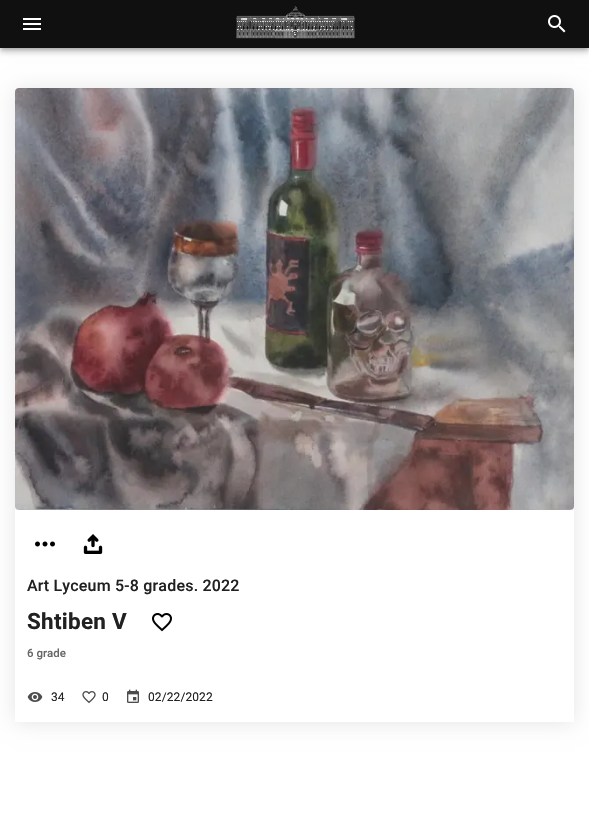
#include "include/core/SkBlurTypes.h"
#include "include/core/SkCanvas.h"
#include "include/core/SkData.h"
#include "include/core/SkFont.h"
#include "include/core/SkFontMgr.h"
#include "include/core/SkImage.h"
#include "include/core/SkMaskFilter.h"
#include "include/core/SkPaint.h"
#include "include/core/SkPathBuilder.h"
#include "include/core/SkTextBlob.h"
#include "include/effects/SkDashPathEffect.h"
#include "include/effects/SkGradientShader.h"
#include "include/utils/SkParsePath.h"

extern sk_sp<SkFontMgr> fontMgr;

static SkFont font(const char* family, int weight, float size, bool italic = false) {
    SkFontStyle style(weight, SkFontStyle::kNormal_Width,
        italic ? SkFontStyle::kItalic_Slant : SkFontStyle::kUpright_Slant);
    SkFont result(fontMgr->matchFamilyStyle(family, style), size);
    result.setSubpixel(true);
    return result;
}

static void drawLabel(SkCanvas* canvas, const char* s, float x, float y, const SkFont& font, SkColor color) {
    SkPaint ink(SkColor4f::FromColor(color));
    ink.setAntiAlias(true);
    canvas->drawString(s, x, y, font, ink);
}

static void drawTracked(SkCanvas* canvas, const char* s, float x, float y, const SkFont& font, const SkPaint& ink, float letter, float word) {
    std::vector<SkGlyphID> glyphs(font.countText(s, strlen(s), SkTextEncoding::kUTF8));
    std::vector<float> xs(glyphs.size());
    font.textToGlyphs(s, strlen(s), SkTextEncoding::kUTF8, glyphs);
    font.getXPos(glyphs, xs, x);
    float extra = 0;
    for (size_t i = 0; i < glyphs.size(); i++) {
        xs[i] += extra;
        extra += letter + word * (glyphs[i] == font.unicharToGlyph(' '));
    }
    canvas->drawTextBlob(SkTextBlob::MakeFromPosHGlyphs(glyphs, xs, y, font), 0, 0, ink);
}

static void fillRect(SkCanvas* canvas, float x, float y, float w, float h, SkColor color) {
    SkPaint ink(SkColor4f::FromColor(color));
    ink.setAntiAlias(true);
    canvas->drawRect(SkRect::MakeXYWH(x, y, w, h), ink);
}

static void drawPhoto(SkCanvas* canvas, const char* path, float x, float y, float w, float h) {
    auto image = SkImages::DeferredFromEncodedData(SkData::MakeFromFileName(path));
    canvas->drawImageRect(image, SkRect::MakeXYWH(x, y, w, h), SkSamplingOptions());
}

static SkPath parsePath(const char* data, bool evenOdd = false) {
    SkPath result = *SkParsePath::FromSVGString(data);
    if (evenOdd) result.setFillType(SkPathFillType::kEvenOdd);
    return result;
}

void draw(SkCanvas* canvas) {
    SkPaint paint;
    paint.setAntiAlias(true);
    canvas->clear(0xFFFFFFFF);
    paint.setColor(0x1F000000);
    paint.setMaskFilter(SkMaskFilter::MakeBlur(kNormal_SkBlurStyle, 5));
    canvas->drawRect(SkRect::MakeXYWH(0, 1, 589, 48), paint);
    paint.setMaskFilter(nullptr);
    paint.setColor(0x24000000);
    paint.setMaskFilter(SkMaskFilter::MakeBlur(kNormal_SkBlurStyle, 2.5f));
    canvas->drawRect(SkRect::MakeXYWH(0, 4, 589, 48), paint);
    paint.setMaskFilter(nullptr);
    paint.setColor(0x33000000);
    paint.setMaskFilter(SkMaskFilter::MakeBlur(kNormal_SkBlurStyle, 2));
    canvas->drawRect(SkRect::MakeXYWH(1, 3, 587, 46), paint);
    paint.setMaskFilter(nullptr);
    fillRect(canvas, 0, 0, 589, 48, 0xFF101010);
    drawPhoto(canvas, "assets/img1.png", 23, 18, 18, 12);
    drawPhoto(canvas, "assets/img2.png", 235, 6, 120, 33);
    drawPhoto(canvas, "assets/img3.png", 548, 15, 18, 18);
    canvas->save();
    canvas->clipPath(parsePath("M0 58H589V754H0ZM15 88H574V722H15Z", true), true);
    paint.setColor(0x1A000000);
    paint.setMaskFilter(SkMaskFilter::MakeBlur(kNormal_SkBlurStyle, 10));
    canvas->drawRect(SkRect::MakeXYWH(15, 89, 559, 634), paint);
    paint.setMaskFilter(nullptr);
    canvas->restore();
    drawPhoto(canvas, "assets/img4.png", 15, 88, 559, 422);
    drawPhoto(canvas, "assets/img5.png", 35, 541, 20, 6);
    drawPhoto(canvas, "assets/img6.png", 83, 534, 20, 20);
    SkFont font1 = font("Roboto", 500, 16);
    paint.setColor(0xFF212121);
    drawTracked(canvas, "Art Lyceum 5-8 grades. 2022", 27, 591, font1, paint, 0.2f, 0);
    SkFont font2 = font("Roboto", 700, 22.5f);
    drawTracked(canvas, "Shtiben V", 27, 629, font2, paint, 0.25f, 0);
    drawPhoto(canvas, "assets/img7.png", 152, 613, 20, 19);
    SkFont font3 = font("Roboto", 500, 11.5f);
    drawLabel(canvas, "6 grade", 27, 657, font3, 0xFF666666);
    drawPhoto(canvas, "assets/img8.png", 27, 692, 16, 10);
    SkFont font4 = font("Roboto", 400, 12);
    drawTracked(canvas, "34", 51, 701, font4, paint, 0.1f, 0);
    drawPhoto(canvas, "assets/img9.png", 82, 691, 14, 13);
    drawTracked(canvas, "0", 102, 701, font4, paint, 0.1f, 0);
    drawPhoto(canvas, "assets/img10.png", 127, 689, 12, 14);
    drawTracked(canvas, "02/22/2022", 148, 701, font4, paint, 0.1f, 0);
}
